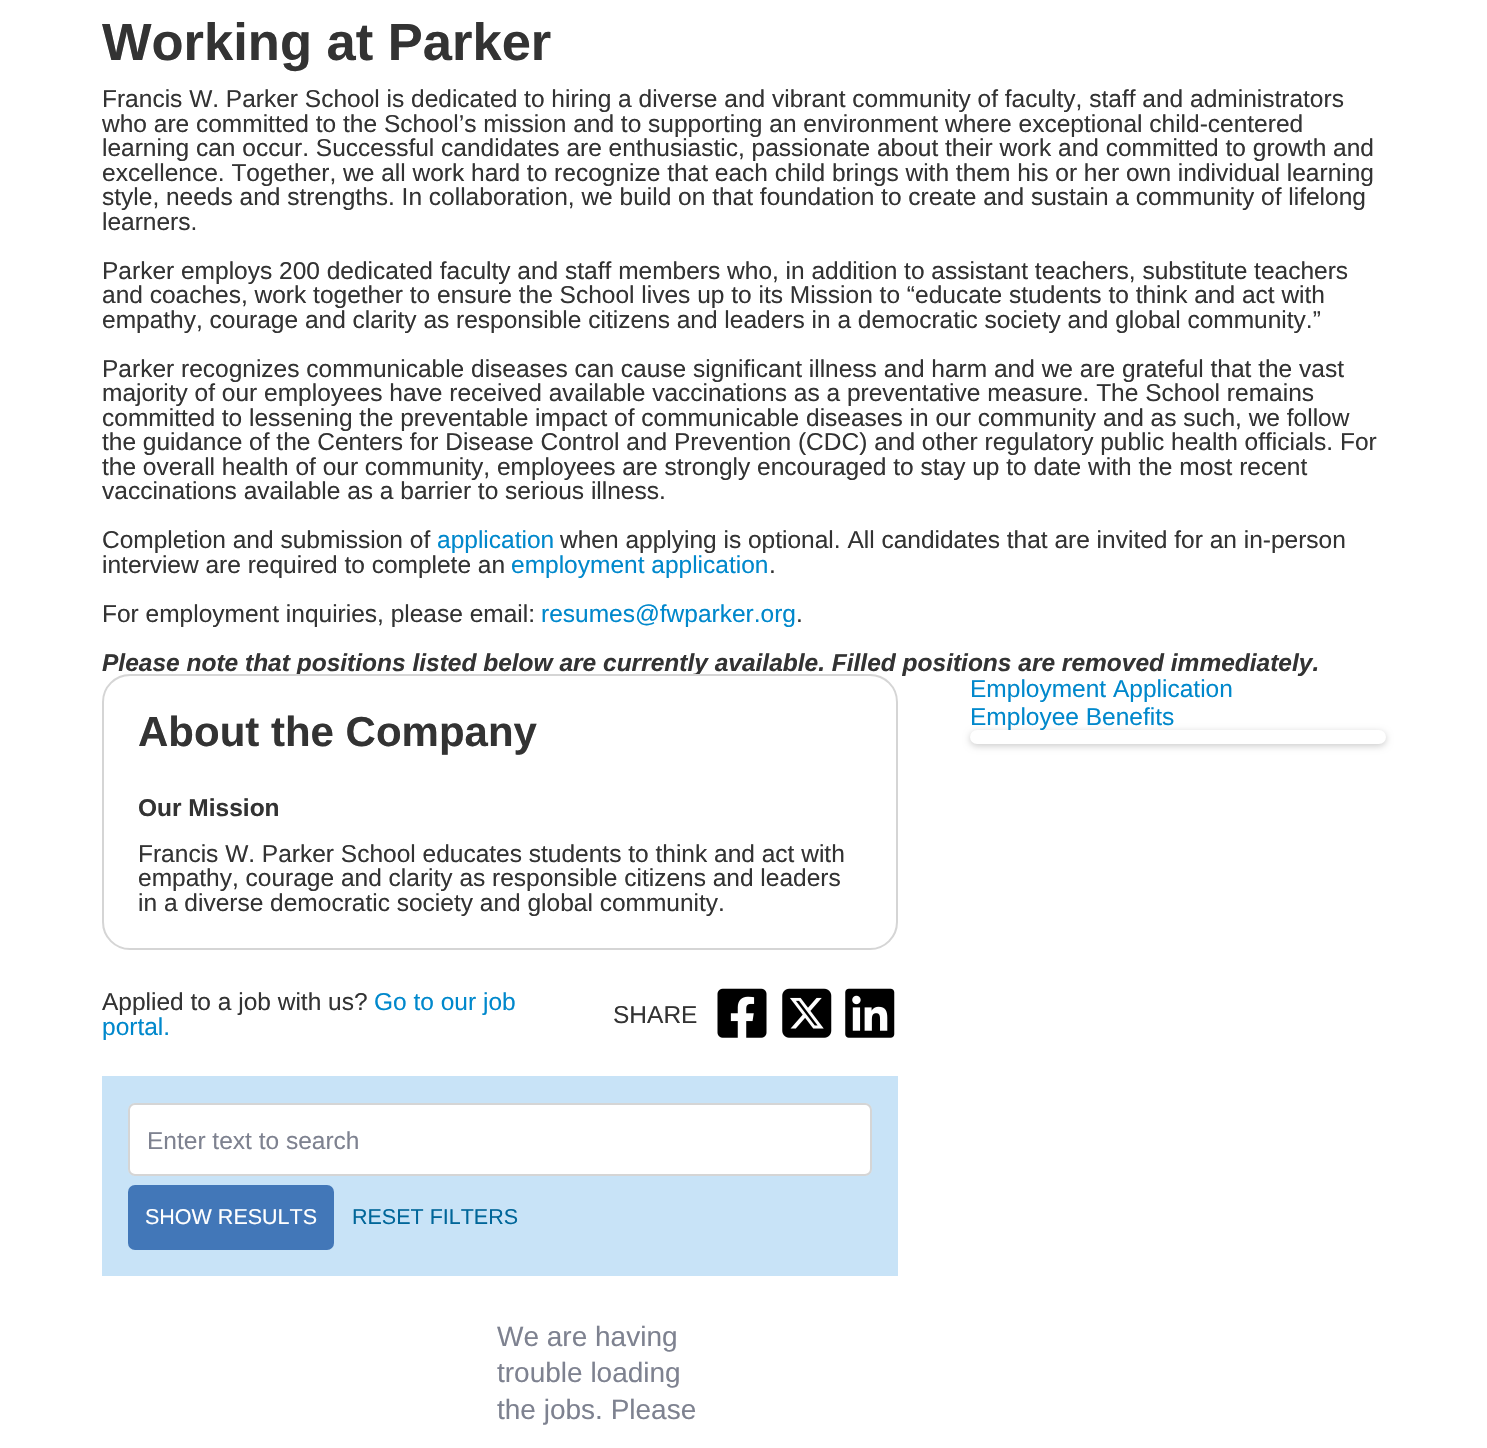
#include "include/core/SkBlurTypes.h"
#include "include/core/SkCanvas.h"
#include "include/core/SkData.h"
#include "include/core/SkFont.h"
#include "include/core/SkFontMgr.h"
#include "include/core/SkImage.h"
#include "include/core/SkMaskFilter.h"
#include "include/core/SkPaint.h"
#include "include/core/SkPathBuilder.h"
#include "include/core/SkTextBlob.h"
#include "include/effects/SkDashPathEffect.h"
#include "include/effects/SkGradientShader.h"
#include "include/utils/SkParsePath.h"

extern sk_sp<SkFontMgr> fontMgr;

static SkFont font(const char* family, int weight, float size, bool italic = false) {
    SkFontStyle style(weight, SkFontStyle::kNormal_Width,
        italic ? SkFontStyle::kItalic_Slant : SkFontStyle::kUpright_Slant);
    SkFont result(fontMgr->matchFamilyStyle(family, style), size);
    result.setSubpixel(true);
    return result;
}

static void drawLabel(SkCanvas* canvas, const char* s, float x, float y, const SkFont& font, SkColor color) {
    SkPaint ink(SkColor4f::FromColor(color));
    ink.setAntiAlias(true);
    canvas->drawString(s, x, y, font, ink);
}

static void fillRect(SkCanvas* canvas, float x, float y, float w, float h, SkColor color) {
    SkPaint ink(SkColor4f::FromColor(color));
    ink.setAntiAlias(true);
    canvas->drawRect(SkRect::MakeXYWH(x, y, w, h), ink);
}

static void fillRRect(SkCanvas* canvas, float x, float y, float w, float h, float radius, SkColor color) {
    SkPaint ink(SkColor4f::FromColor(color));
    ink.setAntiAlias(true);
    canvas->drawRoundRect(SkRect::MakeXYWH(x, y, w, h), radius, radius, ink);
}

static void drawPhoto(SkCanvas* canvas, const char* path, float x, float y, float w, float h) {
    auto image = SkImages::DeferredFromEncodedData(SkData::MakeFromFileName(path));
    canvas->drawImageRect(image, SkRect::MakeXYWH(x, y, w, h), SkSamplingOptions());
}

void draw(SkCanvas* canvas) {
    SkPaint paint;
    paint.setAntiAlias(true);
    canvas->clear(0xFFFFFFFF);
    SkFont font1 = font("Liberation Sans", 700, 52.5f);
    drawLabel(canvas, "Working at Parker", 102, 60, font1, 0xFF333333);
    SkFont font2 = font("Liberation Sans", 400, 24.5f);
    drawLabel(canvas, "Francis W. Parker School is dedicated to hiring a diverse and vibrant community of faculty, staff and administrators", 102, 107, font2, 0xFF333333);
    drawLabel(canvas, "who are committed to the School’s mission and to supporting an environment where exceptional child-centered", 102, 132, font2, 0xFF333333);
    drawLabel(canvas, "learning can occur. Successful candidates are enthusiastic, passionate about their work and committed to growth and", 102, 156, font2, 0xFF333333);
    drawLabel(canvas, "excellence. Together, we all work hard to recognize that each child brings with them his or her own individual learning", 102, 181, font2, 0xFF333333);
    drawLabel(canvas, "style, needs and strengths. In collaboration, we build on that foundation to create and sustain a community of lifelong", 102, 205, font2, 0xFF333333);
    drawLabel(canvas, "learners.", 102, 230, font2, 0xFF333333);
    drawLabel(canvas, "Parker employs 200 dedicated faculty and staff members who, in addition to assistant teachers, substitute teachers", 102, 279, font2, 0xFF333333);
    drawLabel(canvas, "and coaches, work together to ensure the School lives up to its Mission to “educate students to think and act with", 102, 303, font2, 0xFF333333);
    drawLabel(canvas, "empathy, courage and clarity as responsible citizens and leaders in a democratic society and global community.”", 102, 328, font2, 0xFF333333);
    drawLabel(canvas, "Parker recognizes communicable diseases can cause significant illness and harm and we are grateful that the vast", 102, 377, font2, 0xFF333333);
    drawLabel(canvas, "majority of our employees have received available vaccinations as a preventative measure. The School remains", 102, 401, font2, 0xFF333333);
    drawLabel(canvas, "committed to lessening the preventable impact of communicable diseases in our community and as such, we follow", 102, 426, font2, 0xFF333333);
    drawLabel(canvas, "the guidance of the Centers for Disease Control and Prevention (CDC) and other regulatory public health officials. For", 102, 450, font2, 0xFF333333);
    drawLabel(canvas, "the overall health of our community, employees are strongly encouraged to stay up to date with the most recent", 102, 475, font2, 0xFF333333);
    drawLabel(canvas, "vaccinations available as a barrier to serious illness.", 102, 499, font2, 0xFF333333);
    drawLabel(canvas, "Completion and submission of", 102, 548, font2, 0xFF333333);
    drawLabel(canvas, "application", 437, 548, font2, 0xFF0088CC);
    drawLabel(canvas, "when applying is optional. All candidates that are invited for an in-person", 560, 548, font2, 0xFF333333);
    drawLabel(canvas, "interview are required to complete an", 102, 573, font2, 0xFF333333);
    drawLabel(canvas, "employment application", 511, 573, font2, 0xFF0088CC);
    drawLabel(canvas, ".", 769, 573, font2, 0xFF333333);
    drawLabel(canvas, "For employment inquiries, please email:", 102, 622, font2, 0xFF333333);
    drawLabel(canvas, "resumes@fwparker.org", 541, 622, font2, 0xFF0088CC);
    drawLabel(canvas, ".", 796, 622, font2, 0xFF333333);
    SkFont font3 = font("Liberation Sans", 700, 24.5f, true);
    drawLabel(canvas, "Please note that positions listed below are currently available. Filled positions are removed immediately.", 102, 671, font3, 0xFF333333);
    drawLabel(canvas, "Employment Application", 970, 697, font2, 0xFF0088CC);
    drawLabel(canvas, "Employee Benefits", 970, 725, font2, 0xFF0088CC);
    paint.setColor(0x33000000);
    paint.setMaskFilter(SkMaskFilter::MakeBlur(kNormal_SkBlurStyle, 3.5f));
    canvas->drawRoundRect(SkRect::MakeXYWH(970, 732, 416, 14), 7, 7, paint);
    paint.setMaskFilter(nullptr);
    fillRRect(canvas, 970, 730, 416, 14, 7, 0xFFFFFFFF);
    paint.setStroke(true);
    paint.setStrokeWidth(2);
    paint.setColor(0xFFD5D5D5);
    canvas->drawRoundRect(SkRect::MakeXYWH(103, 675, 794, 274), 27, 27, paint);
    SkFont font4 = font("Liberation Sans", 700, 42);
    drawLabel(canvas, "About the Company", 138, 746, font4, 0xFF333333);
    SkFont font5 = font("Liberation Sans", 700, 24.5f);
    drawLabel(canvas, "Our Mission", 138, 816, font5, 0xFF333333);
    drawLabel(canvas, "Francis W. Parker School educates students to think and act with", 138, 862, font2, 0xFF333333);
    drawLabel(canvas, "empathy, courage and clarity as responsible citizens and leaders", 138, 886, font2, 0xFF333333);
    drawLabel(canvas, "in a diverse democratic society and global community.", 138, 911, font2, 0xFF333333);
    drawLabel(canvas, "Applied to a job with us?", 102, 1010, font2, 0xFF333333);
    drawLabel(canvas, "Go to our job", 374, 1010, font2, 0xFF0088CC);
    drawLabel(canvas, "portal.", 102, 1035, font2, 0xFF0088CC);
    drawLabel(canvas, "SHARE", 613, 1023, font2, 0xFF333333);
    drawPhoto(canvas, "assets/img1.png", 717, 988, 50, 50);
    drawPhoto(canvas, "assets/img2.png", 782, 988, 50, 50);
    drawPhoto(canvas, "assets/img3.png", 845, 988, 50, 50);
    fillRect(canvas, 102, 1076, 796, 200, 0xFFC8E3F7);
    fillRRect(canvas, 128, 1103, 744, 73, 7, 0xFFFFFFFF);
    paint.setColor(0x4D757575);
    canvas->drawRoundRect(SkRect::MakeXYWH(129, 1104, 742, 71), 6, 6, paint);
    drawLabel(canvas, "Enter text to search", 147, 1149, font2, 0xFF7E8290);
    fillRRect(canvas, 128, 1185, 206, 65, 7, 0xFF4277B8);
    SkFont font6 = font("Liberation Sans", 400, 21.5f);
    drawLabel(canvas, "SHOW RESULTS", 145, 1224, font6, 0xFFFFFFFF);
    drawLabel(canvas, "RESET FILTERS", 352, 1224, font6, 0xFF006699);
    SkFont font7 = font("Liberation Sans", 400, 28);
    drawLabel(canvas, "We are having", 497, 1346, font7, 0xFF7E8290);
    drawLabel(canvas, "trouble loading", 497, 1382, font7, 0xFF7E8290);
    drawLabel(canvas, "the jobs. Please", 497, 1419, font7, 0xFF7E8290);
}
